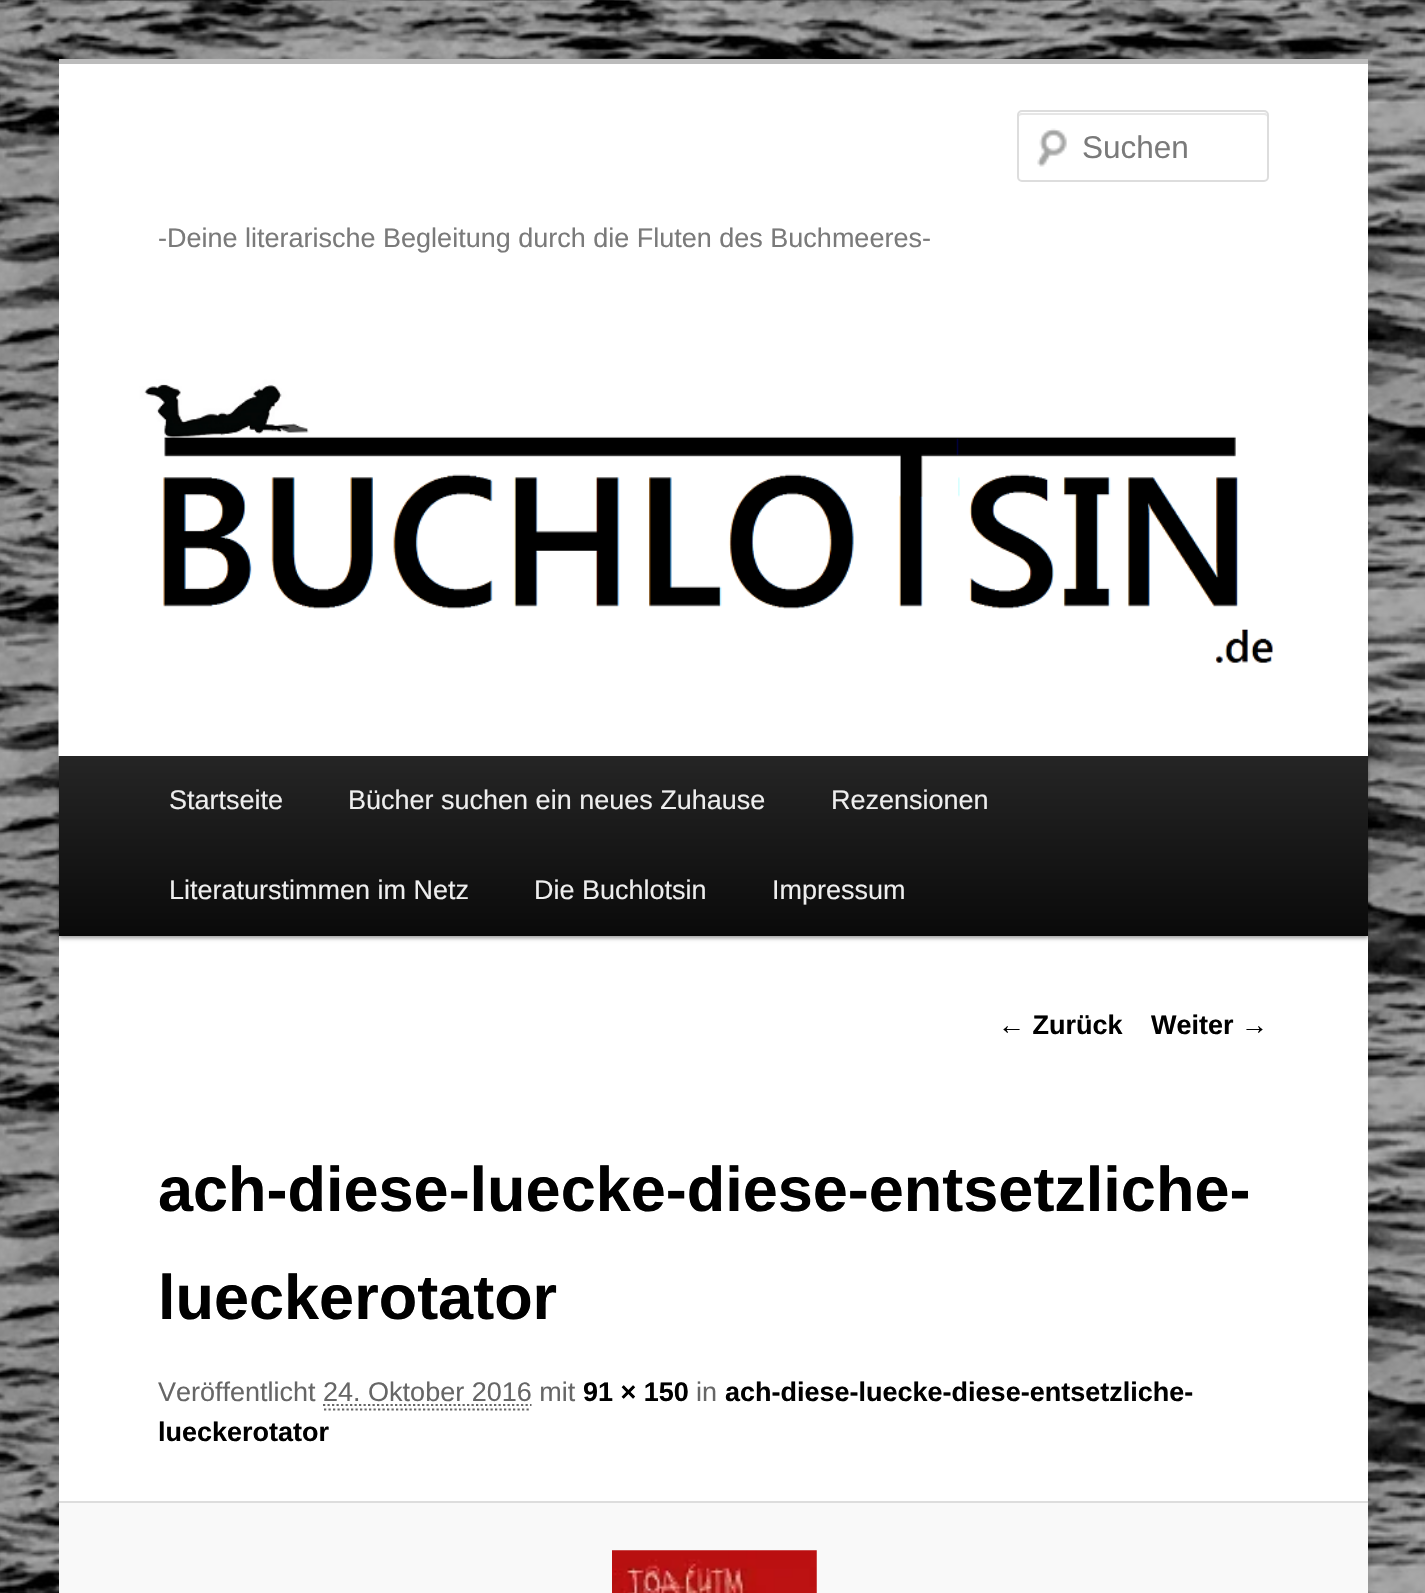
#include "include/core/SkBlurTypes.h"
#include "include/core/SkCanvas.h"
#include "include/core/SkData.h"
#include "include/core/SkFont.h"
#include "include/core/SkFontMgr.h"
#include "include/core/SkImage.h"
#include "include/core/SkMaskFilter.h"
#include "include/core/SkPaint.h"
#include "include/core/SkPathBuilder.h"
#include "include/core/SkTextBlob.h"
#include "include/effects/SkDashPathEffect.h"
#include "include/effects/SkGradientShader.h"
#include "include/utils/SkParsePath.h"

extern sk_sp<SkFontMgr> fontMgr;

static SkFont font(const char* family, int weight, float size, bool italic = false) {
    SkFontStyle style(weight, SkFontStyle::kNormal_Width,
        italic ? SkFontStyle::kItalic_Slant : SkFontStyle::kUpright_Slant);
    SkFont result(fontMgr->matchFamilyStyle(family, style), size);
    result.setSubpixel(true);
    return result;
}

static void drawLabel(SkCanvas* canvas, const char* s, float x, float y, const SkFont& font, SkColor color) {
    SkPaint ink(SkColor4f::FromColor(color));
    ink.setAntiAlias(true);
    canvas->drawString(s, x, y, font, ink);
}

static void fillRect(SkCanvas* canvas, float x, float y, float w, float h, SkColor color) {
    SkPaint ink(SkColor4f::FromColor(color));
    ink.setAntiAlias(true);
    canvas->drawRect(SkRect::MakeXYWH(x, y, w, h), ink);
}

static void drawPhoto(SkCanvas* canvas, const char* path, float x, float y, float w, float h) {
    auto image = SkImages::DeferredFromEncodedData(SkData::MakeFromFileName(path));
    canvas->drawImageRect(image, SkRect::MakeXYWH(x, y, w, h), SkSamplingOptions());
}

static SkPath parsePath(const char* data, bool evenOdd = false) {
    SkPath result = *SkParsePath::FromSVGString(data);
    if (evenOdd) result.setFillType(SkPathFillType::kEvenOdd);
    return result;
}

void draw(SkCanvas* canvas) {
    SkPaint paint;
    paint.setAntiAlias(true);
    canvas->clear(0xFFFFFFFF);
    drawPhoto(canvas, "assets/img1.png", 0, 0, 1425, 1593);
    fillRect(canvas, 59, 64, 1309, 1437, 0xFFFFFFFF);
    fillRect(canvas, 59, 59, 1309, 5, 0xFFBBBBBB);
    drawPhoto(canvas, "assets/img2.png", 1037, 128, 30, 39);
    paint.setColor(0xFFE6E6E6);
    canvas->drawPath(parsePath("M1022 115H1264C1266 115 1267 116 1267 117C1267 115 1267 113 1265 113H1021C1019 113 1019 115 1019 117C1019 116 1020 115 1022 115Z"), paint);
    paint.setStroke(true);
    paint.setStrokeWidth(2);
    paint.setColor(0xFFDDDDDD);
    canvas->drawRoundRect(SkRect::MakeXYWH(1018, 111, 250, 70), 4, 4, paint);
    SkFont font1 = font("Liberation Sans", 400, 31.5f);
    drawLabel(canvas, "Suchen", 1082, 158, font1, 0xFF7A7A7A);
    SkFont font2 = font("Liberation Sans", 400, 27);
    drawLabel(canvas, "-Deine literarische Begleitung durch die Fluten des Buchmeeres-", 158, 247, font2, 0xFF7A7A7A);
    paint.setStroke(false);
    paint.setColor(0x66000000);
    paint.setMaskFilter(SkMaskFilter::MakeBlur(kNormal_SkBlurStyle, 2));
    canvas->drawRect(SkRect::MakeXYWH(59, 758, 1309, 180), paint);
    paint.setMaskFilter(nullptr);
    drawPhoto(canvas, "assets/img3.png", 58, 360, 1310, 396);
    {
        const SkColor colors[] = {0xFF252525, 0xFF0A0A0A};
        const float stops[] = {0, 1};
        const SkPoint ends[] = {{713, 756}, {713, 936}};
        paint.setShader(SkGradientShader::MakeLinear(ends, colors, stops, 2, SkTileMode::kClamp));
        paint.setAlpha(255);
    }
    canvas->drawRect(SkRect::MakeXYWH(59, 756, 1309, 180), paint);
    drawLabel(canvas, "Startseite", 169, 809, font2, 0xFFEEEEEE);
    drawLabel(canvas, "Bücher suchen ein neues Zuhause", 348, 809, font2, 0xFFEEEEEE);
    drawLabel(canvas, "Rezensionen", 831, 809, font2, 0xFFEEEEEE);
    drawLabel(canvas, "Literaturstimmen im Netz", 169, 899, font2, 0xFFEEEEEE);
    drawLabel(canvas, "Die Buchlotsin", 534, 899, font2, 0xFFEEEEEE);
    drawLabel(canvas, "Impressum", 772, 899, font2, 0xFFEEEEEE);
    SkFont font3 = font("Liberation Sans", 700, 27);
    drawLabel(canvas, "← Zurück", 998, 1034, font3, 0xFF000000);
    drawLabel(canvas, "Weiter →", 1151, 1034, font3, 0xFF000000);
    SkFont font4 = font("Liberation Sans", 700, 63);
    drawLabel(canvas, "ach-diese-luecke-diese-entsetzliche-", 158, 1211, font4, 0xFF000000);
    drawLabel(canvas, "lueckerotator", 158, 1319, font4, 0xFF000000);
    drawLabel(canvas, "Veröffentlicht 24. Oktober 2016 mit", 158, 1401, font2, 0xFF666666);
    drawLabel(canvas, "91 × 150", 583, 1401, font3, 0xFF000000);
    drawLabel(canvas, "in", 696, 1401, font2, 0xFF666666);
    drawLabel(canvas, "ach-diese-luecke-diese-entsetzliche-", 725, 1401, font3, 0xFF000000);
    paint.setStroke(true);
    paint.setStrokeWidth(2.2f);
    paint.setShader(nullptr);
    paint.setColor(0xFF666666);
    paint.setPathEffect(SkDashPathEffect::Make({{2.25f, 2.25f}}, 0));
    canvas->drawPath(parsePath("M323 1405H531.5"), paint);
    paint.setPathEffect(nullptr);
    paint.setPathEffect(SkDashPathEffect::Make({{2.25f, 2.25f}}, 0));
    canvas->drawPath(parsePath("M324 1409.5H531"), paint);
    paint.setPathEffect(nullptr);
    drawLabel(canvas, "lueckerotator", 158, 1441, font3, 0xFF000000);
    fillRect(canvas, 59, 1503, 1309, 90, 0xFFF9F9F9);
    fillRect(canvas, 59, 1501, 1309, 2, 0xFFDDDDDD);
    drawPhoto(canvas, "assets/img4.png", 612, 1550, 205, 43);
}
